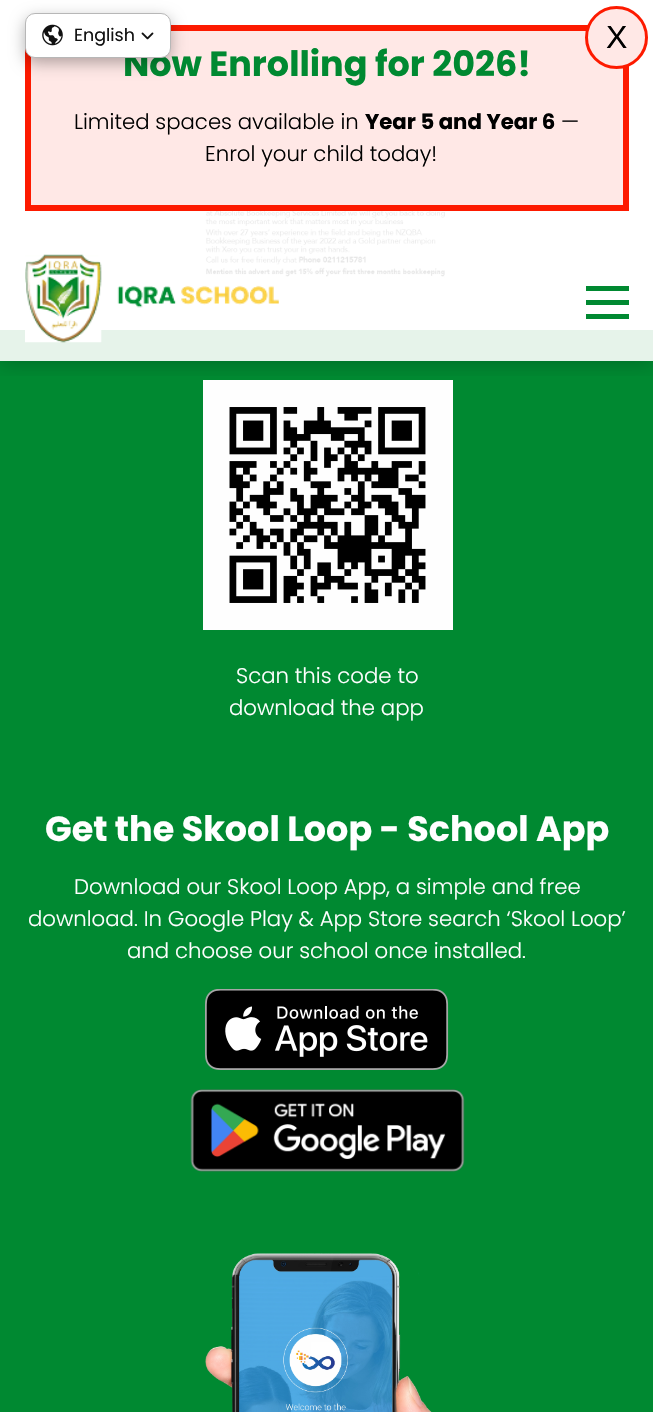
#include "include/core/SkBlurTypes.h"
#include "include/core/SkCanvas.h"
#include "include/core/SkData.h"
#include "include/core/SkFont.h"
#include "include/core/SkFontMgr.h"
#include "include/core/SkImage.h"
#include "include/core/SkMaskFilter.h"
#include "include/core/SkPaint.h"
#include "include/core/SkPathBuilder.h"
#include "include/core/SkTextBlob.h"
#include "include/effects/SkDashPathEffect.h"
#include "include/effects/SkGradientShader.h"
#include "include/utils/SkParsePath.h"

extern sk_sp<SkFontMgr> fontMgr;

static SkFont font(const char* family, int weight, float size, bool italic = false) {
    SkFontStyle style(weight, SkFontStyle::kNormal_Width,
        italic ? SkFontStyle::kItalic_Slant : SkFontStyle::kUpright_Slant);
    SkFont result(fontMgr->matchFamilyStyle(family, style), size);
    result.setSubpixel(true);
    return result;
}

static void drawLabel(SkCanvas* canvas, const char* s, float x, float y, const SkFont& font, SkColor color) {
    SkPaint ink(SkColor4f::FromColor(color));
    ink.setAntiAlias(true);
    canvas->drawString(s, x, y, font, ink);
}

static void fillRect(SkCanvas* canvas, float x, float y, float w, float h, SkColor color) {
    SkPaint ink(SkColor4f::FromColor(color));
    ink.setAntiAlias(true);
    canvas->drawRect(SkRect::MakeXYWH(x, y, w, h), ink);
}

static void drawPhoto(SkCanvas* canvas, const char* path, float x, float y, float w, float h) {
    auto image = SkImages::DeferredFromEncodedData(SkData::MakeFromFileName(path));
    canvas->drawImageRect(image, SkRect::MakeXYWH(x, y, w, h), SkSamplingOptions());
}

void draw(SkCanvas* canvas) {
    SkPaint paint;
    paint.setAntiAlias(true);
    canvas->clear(0xFFFFFFFF);
    drawPhoto(canvas, "assets/img4.png", 198, 211, 253, 67);
    fillRect(canvas, 0, 361, 653, 1051, 0xFF008931);
    fillRect(canvas, 0, 330, 653, 31, 0xFFE6F3EA);
    drawPhoto(canvas, "assets/img5.png", 203, 380, 250, 250);
    canvas->save();
    canvas->clipRect(SkRect::MakeXYWH(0, 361, 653, 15));
    paint.setColor(0x33000000);
    paint.setMaskFilter(SkMaskFilter::MakeBlur(kNormal_SkBlurStyle, 9.5f));
    canvas->drawRect(SkRect::MakeXYWH(0, -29, 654, 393), paint);
    paint.setMaskFilter(nullptr);
    canvas->restore();
    paint.setColor(0xFFFFE8E6);
    canvas->drawRect(SkRect::MakeXYWH(28, 28, 598, 180), paint);
    paint.setStroke(true);
    paint.setStrokeWidth(6);
    paint.setColor(0xFFFD1A00);
    canvas->drawRect(SkRect::MakeXYWH(28, 28, 598, 180), paint);
    paint.setStroke(false);
    paint.setColor(0xFFFFE8E6);
    canvas->drawCircle(616.5f, 37.5f, 30, paint);
    paint.setStroke(true);
    paint.setStrokeWidth(3);
    paint.setColor(0xFFFD1A00);
    canvas->drawCircle(616.5f, 37.5f, 30, paint);
    SkFont font1 = font("Liberation Sans", 400, 32);
    drawLabel(canvas, "X", 606, 48, font1, 0xFF000000);
    SkFont font2 = font("Poppins", 700, 35);
    drawLabel(canvas, "Now Enrolling for 2026!", 123, 76, font2, 0xFF008931);
    SkFont font3 = font("Poppins", 300, 21.25f);
    drawLabel(canvas, "Limited spaces available in", 74, 129, font3, 0xFF000000);
    SkFont font4 = font("Poppins", 700, 21.25f);
    drawLabel(canvas, "Year 5 and Year 6", 365, 129, font4, 0xFF000000);
    drawLabel(canvas, "—", 561, 129, font3, 0xFF000000);
    drawLabel(canvas, "Enrol your child today!", 205, 161, font3, 0xFF000000);
    drawPhoto(canvas, "assets/img1.png", 25, 254, 254, 89);
    fillRect(canvas, 586, 286, 43, 5, 0xFF008931);
    fillRect(canvas, 586, 300, 43, 5, 0xFF008931);
    fillRect(canvas, 586, 314, 43, 5, 0xFF008931);
    paint.setStroke(false);
    paint.setColor(0x4D000000);
    paint.setMaskFilter(SkMaskFilter::MakeBlur(kNormal_SkBlurStyle, 7.5f));
    canvas->drawRoundRect(SkRect::MakeXYWH(25, 18, 146, 45), 10, 10, paint);
    paint.setMaskFilter(nullptr);
    paint.setColor(0xFFFFFFFF);
    canvas->drawRoundRect(SkRect::MakeXYWH(25.5f, 13.5f, 145, 44), 9.5f, 9.5f, paint);
    paint.setStroke(true);
    paint.setStrokeWidth(1);
    paint.setColor(0xFFB7B7B7);
    canvas->drawRoundRect(SkRect::MakeXYWH(25.5f, 13.5f, 145, 44), 9.5f, 9.5f, paint);
    drawPhoto(canvas, "assets/img2.png", 42, 24, 21, 22);
    SkFont font5 = font("Poppins", 400, 17.5f);
    drawLabel(canvas, "English", 74, 41, font5, 0xFF111111);
    drawPhoto(canvas, "assets/img3.png", 141, 32, 13, 8);
    drawLabel(canvas, "Scan this code to", 236, 683, font3, 0xFFFFFFFF);
    drawLabel(canvas, "download the app", 229, 715, font3, 0xFFFFFFFF);
    drawLabel(canvas, "Get the Skool Loop - School App", 45, 841, font2, 0xFFFFFFFF);
    drawLabel(canvas, "Download our Skool Loop App, a simple and free", 74, 894, font3, 0xFFFFFFFF);
    drawLabel(canvas, "download. In Google Play & App Store search ‘Skool Loop’", 28, 926, font3, 0xFFFFFFFF);
    drawLabel(canvas, "and choose our school once installed.", 127, 958, font3, 0xFFFFFFFF);
    drawPhoto(canvas, "assets/img6.png", 205, 989, 244, 81);
    drawPhoto(canvas, "assets/img7.png", 190, 1089, 275, 83);
    drawPhoto(canvas, "assets/img8.png", 205, 1253, 227, 159);
}
